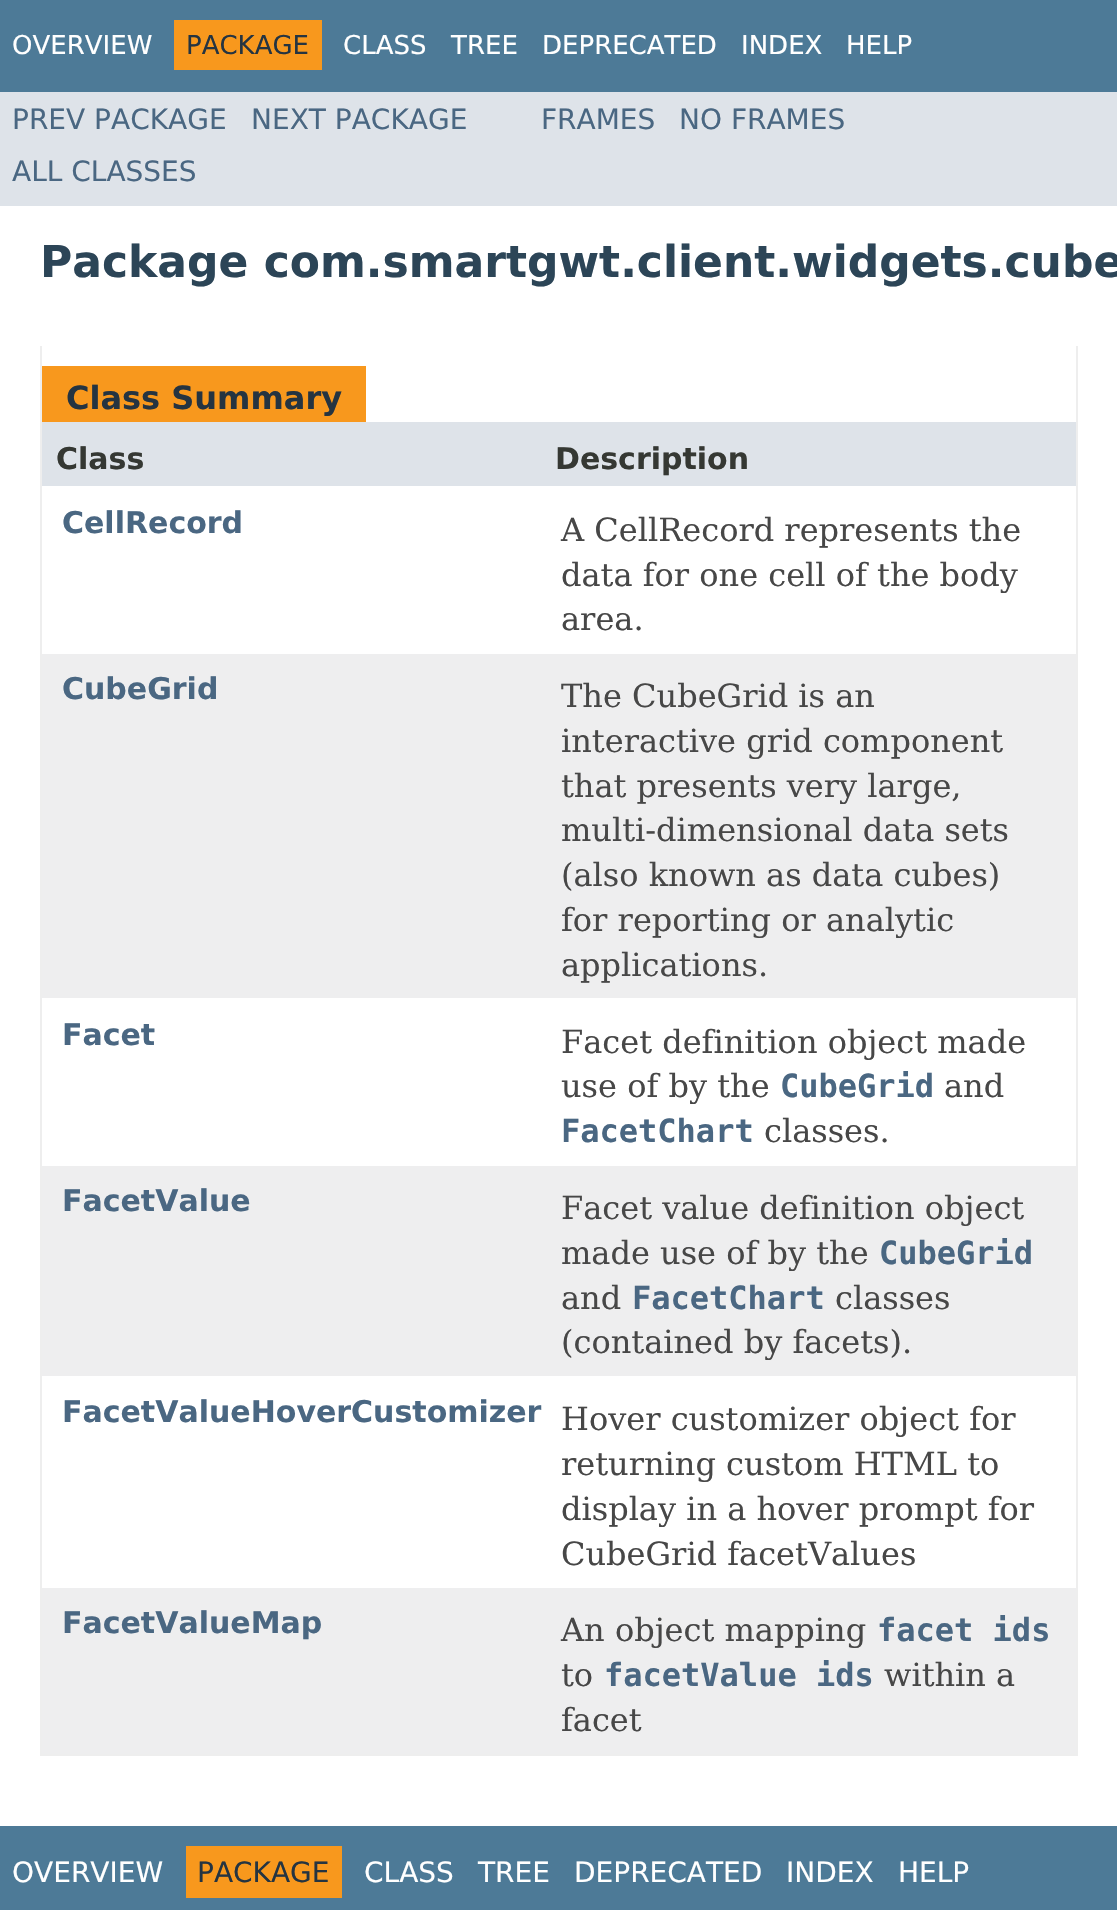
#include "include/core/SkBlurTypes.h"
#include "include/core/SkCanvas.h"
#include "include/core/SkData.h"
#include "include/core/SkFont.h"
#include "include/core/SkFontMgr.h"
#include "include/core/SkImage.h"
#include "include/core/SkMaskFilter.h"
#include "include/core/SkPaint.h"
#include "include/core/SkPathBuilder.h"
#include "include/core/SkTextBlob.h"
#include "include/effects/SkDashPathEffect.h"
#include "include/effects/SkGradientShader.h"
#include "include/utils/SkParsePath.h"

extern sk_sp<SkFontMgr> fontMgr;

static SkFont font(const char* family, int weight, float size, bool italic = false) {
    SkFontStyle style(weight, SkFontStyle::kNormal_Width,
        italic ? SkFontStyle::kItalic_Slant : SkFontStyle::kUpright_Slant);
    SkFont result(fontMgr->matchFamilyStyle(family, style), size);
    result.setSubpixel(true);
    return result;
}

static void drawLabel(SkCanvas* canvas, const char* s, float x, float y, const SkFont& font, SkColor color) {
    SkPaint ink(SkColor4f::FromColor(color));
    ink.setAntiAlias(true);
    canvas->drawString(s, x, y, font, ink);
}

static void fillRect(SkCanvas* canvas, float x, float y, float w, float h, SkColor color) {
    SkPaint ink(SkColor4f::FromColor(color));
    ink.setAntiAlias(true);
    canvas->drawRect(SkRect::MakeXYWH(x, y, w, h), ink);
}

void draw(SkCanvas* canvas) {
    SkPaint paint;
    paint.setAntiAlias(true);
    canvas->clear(0xFFFFFFFF);
    fillRect(canvas, 0, 0, 1117, 92, 0xFF4D7A97);
    SkFont font1 = font("DejaVu Sans", 400, 26);
    drawLabel(canvas, "OVERVIEW", 12, 54, font1, 0xFFFFFFFF);
    fillRect(canvas, 174, 20, 148, 50, 0xFFF8981D);
    drawLabel(canvas, "PACKAGE", 186, 54, font1, 0xFF253441);
    drawLabel(canvas, "CLASS", 343, 54, font1, 0xFFFFFFFF);
    drawLabel(canvas, "TREE", 451, 54, font1, 0xFFFFFFFF);
    drawLabel(canvas, "DEPRECATED", 542, 54, font1, 0xFFFFFFFF);
    drawLabel(canvas, "INDEX", 741, 54, font1, 0xFFFFFFFF);
    drawLabel(canvas, "HELP", 846, 54, font1, 0xFFFFFFFF);
    fillRect(canvas, 0, 92, 1117, 114, 0xFFDEE3E9);
    SkFont font2 = font("DejaVu Sans", 400, 28);
    drawLabel(canvas, "PREV PACKAGE", 12, 129, font2, 0xFF4A6782);
    drawLabel(canvas, "NEXT PACKAGE", 251, 129, font2, 0xFF4A6782);
    drawLabel(canvas, "FRAMES", 541, 129, font2, 0xFF4A6782);
    drawLabel(canvas, "NO FRAMES", 679, 129, font2, 0xFF4A6782);
    drawLabel(canvas, "ALL CLASSES", 12, 181, font2, 0xFF4A6782);
    SkFont font3 = font("DejaVu Sans", 700, 44);
    drawLabel(canvas, "Package com.smartgwt.client.widgets.cube", 40, 277, font3, 0xFF2C4557);
    fillRect(canvas, 1076, 346, 2, 1410, 0xFFEEEEEE);
    fillRect(canvas, 40, 1754, 1038, 2, 0xFFEEEEEE);
    fillRect(canvas, 40, 346, 2, 1410, 0xFFEEEEEE);
    fillRect(canvas, 42, 366, 324, 56, 0xFFF8981D);
    SkFont font4 = font("DejaVu Sans", 700, 32);
    drawLabel(canvas, "Class Summary", 66, 409, font4, 0xFF253441);
    fillRect(canvas, 42, 422, 1034, 64, 0xFFDEE3E9);
    SkFont font5 = font("DejaVu Sans", 700, 30);
    drawLabel(canvas, "Class", 56, 469, font5, 0xFF353833);
    drawLabel(canvas, "Description", 555, 469, font5, 0xFF353833);
    drawLabel(canvas, "CellRecord", 62, 533, font5, 0xFF4A6782);
    SkFont font6 = font("DejaVu Serif", 400, 32);
    drawLabel(canvas, "A CellRecord represents the", 561, 541, font6, 0xFF474747);
    drawLabel(canvas, "data for one cell of the body", 561, 586, font6, 0xFF474747);
    drawLabel(canvas, "area.", 561, 630, font6, 0xFF474747);
    fillRect(canvas, 42, 654, 1034, 344, 0xFFEEEEEF);
    drawLabel(canvas, "CubeGrid", 62, 699, font5, 0xFF4A6782);
    drawLabel(canvas, "The CubeGrid is an", 561, 707, font6, 0xFF474747);
    drawLabel(canvas, "interactive grid component", 561, 752, font6, 0xFF474747);
    drawLabel(canvas, "that presents very large,", 561, 797, font6, 0xFF474747);
    drawLabel(canvas, "multi-dimensional data sets", 561, 841, font6, 0xFF474747);
    drawLabel(canvas, "(also known as data cubes)", 561, 886, font6, 0xFF474747);
    drawLabel(canvas, "for reporting or analytic", 561, 931, font6, 0xFF474747);
    drawLabel(canvas, "applications.", 561, 976, font6, 0xFF474747);
    drawLabel(canvas, "Facet", 62, 1045, font5, 0xFF4A6782);
    drawLabel(canvas, "Facet definition object made", 561, 1053, font6, 0xFF474747);
    drawLabel(canvas, "use of by the", 561, 1097, font6, 0xFF474747);
    SkFont font7 = font("DejaVu Sans Mono", 700, 32);
    drawLabel(canvas, "CubeGrid", 780, 1097, font7, 0xFF4A6782);
    drawLabel(canvas, "and", 944, 1097, font6, 0xFF474747);
    drawLabel(canvas, "FacetChart", 561, 1142, font7, 0xFF4A6782);
    drawLabel(canvas, "classes.", 764, 1142, font6, 0xFF474747);
    fillRect(canvas, 42, 1166, 1034, 210, 0xFFEEEEEF);
    drawLabel(canvas, "FacetValue", 62, 1211, font5, 0xFF4A6782);
    drawLabel(canvas, "Facet value definition object", 561, 1219, font6, 0xFF474747);
    drawLabel(canvas, "made use of by the", 561, 1264, font6, 0xFF474747);
    drawLabel(canvas, "CubeGrid", 879, 1264, font7, 0xFF4A6782);
    drawLabel(canvas, "and", 561, 1309, font6, 0xFF474747);
    drawLabel(canvas, "FacetChart", 632, 1309, font7, 0xFF4A6782);
    drawLabel(canvas, "classes", 835, 1309, font6, 0xFF474747);
    drawLabel(canvas, "(contained by facets).", 561, 1353, font6, 0xFF474747);
    drawLabel(canvas, "FacetValueHoverCustomizer", 62, 1422, font5, 0xFF4A6782);
    drawLabel(canvas, "Hover customizer object for", 561, 1430, font6, 0xFF474747);
    drawLabel(canvas, "returning custom HTML to", 561, 1475, font6, 0xFF474747);
    drawLabel(canvas, "display in a hover prompt for", 561, 1520, font6, 0xFF474747);
    drawLabel(canvas, "CubeGrid facetValues", 561, 1565, font6, 0xFF474747);
    fillRect(canvas, 42, 1588, 1034, 166, 0xFFEEEEEF);
    drawLabel(canvas, "FacetValueMap", 62, 1633, font5, 0xFF4A6782);
    drawLabel(canvas, "An object mapping", 561, 1641, font6, 0xFF474747);
    drawLabel(canvas, "facet ids", 877, 1641, font7, 0xFF4A6782);
    drawLabel(canvas, "to", 561, 1686, font6, 0xFF474747);
    drawLabel(canvas, "facetValue ids", 604, 1686, font7, 0xFF4A6782);
    drawLabel(canvas, "within a", 884, 1686, font6, 0xFF474747);
    drawLabel(canvas, "facet", 561, 1731, font6, 0xFF474747);
    fillRect(canvas, 0, 1826, 1117, 84, 0xFF4D7A97);
    drawLabel(canvas, "OVERVIEW", 12, 1882, font2, 0xFFFFFFFF);
    fillRect(canvas, 186, 1846, 156, 52, 0xFFF8981D);
    drawLabel(canvas, "PACKAGE", 197, 1882, font2, 0xFF253441);
    drawLabel(canvas, "CLASS", 364, 1882, font2, 0xFFFFFFFF);
    drawLabel(canvas, "TREE", 478, 1882, font2, 0xFFFFFFFF);
    drawLabel(canvas, "DEPRECATED", 574, 1882, font2, 0xFFFFFFFF);
    drawLabel(canvas, "INDEX", 786, 1882, font2, 0xFFFFFFFF);
    drawLabel(canvas, "HELP", 898, 1882, font2, 0xFFFFFFFF);
}
